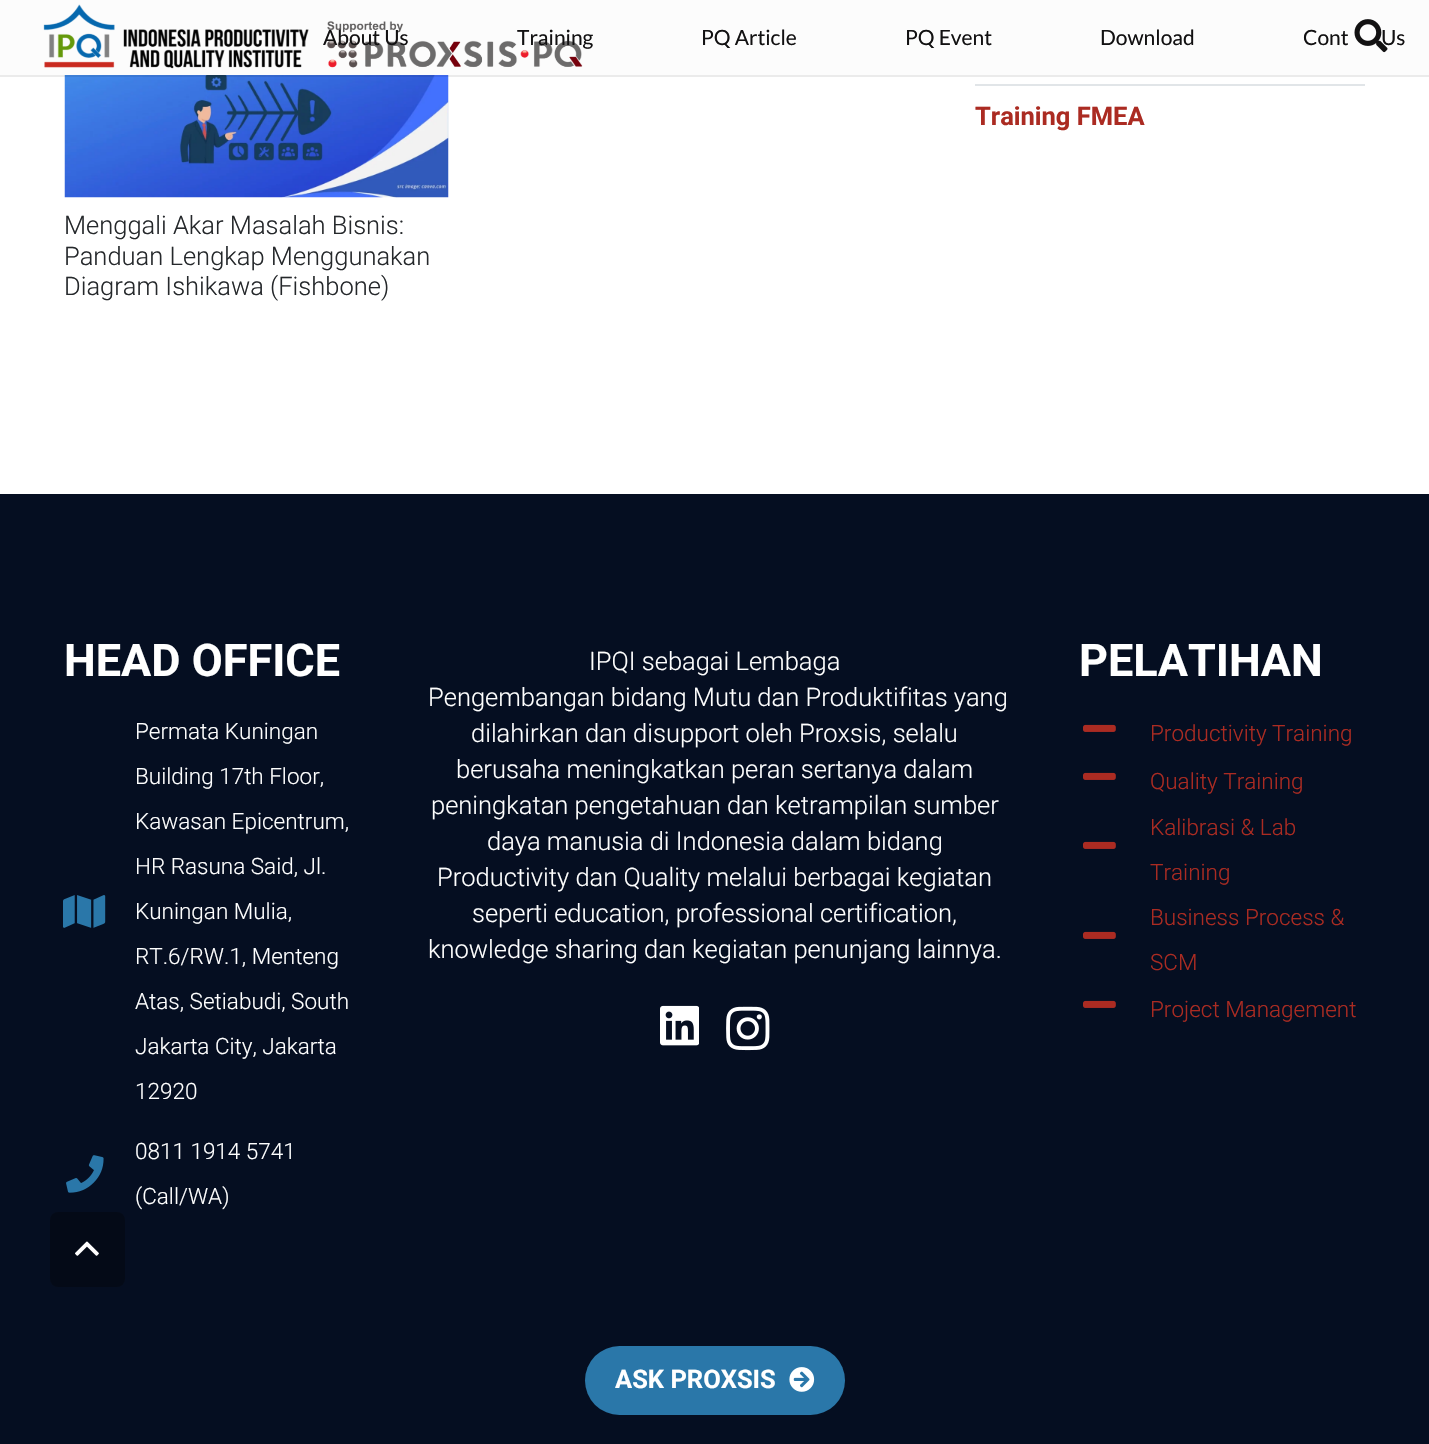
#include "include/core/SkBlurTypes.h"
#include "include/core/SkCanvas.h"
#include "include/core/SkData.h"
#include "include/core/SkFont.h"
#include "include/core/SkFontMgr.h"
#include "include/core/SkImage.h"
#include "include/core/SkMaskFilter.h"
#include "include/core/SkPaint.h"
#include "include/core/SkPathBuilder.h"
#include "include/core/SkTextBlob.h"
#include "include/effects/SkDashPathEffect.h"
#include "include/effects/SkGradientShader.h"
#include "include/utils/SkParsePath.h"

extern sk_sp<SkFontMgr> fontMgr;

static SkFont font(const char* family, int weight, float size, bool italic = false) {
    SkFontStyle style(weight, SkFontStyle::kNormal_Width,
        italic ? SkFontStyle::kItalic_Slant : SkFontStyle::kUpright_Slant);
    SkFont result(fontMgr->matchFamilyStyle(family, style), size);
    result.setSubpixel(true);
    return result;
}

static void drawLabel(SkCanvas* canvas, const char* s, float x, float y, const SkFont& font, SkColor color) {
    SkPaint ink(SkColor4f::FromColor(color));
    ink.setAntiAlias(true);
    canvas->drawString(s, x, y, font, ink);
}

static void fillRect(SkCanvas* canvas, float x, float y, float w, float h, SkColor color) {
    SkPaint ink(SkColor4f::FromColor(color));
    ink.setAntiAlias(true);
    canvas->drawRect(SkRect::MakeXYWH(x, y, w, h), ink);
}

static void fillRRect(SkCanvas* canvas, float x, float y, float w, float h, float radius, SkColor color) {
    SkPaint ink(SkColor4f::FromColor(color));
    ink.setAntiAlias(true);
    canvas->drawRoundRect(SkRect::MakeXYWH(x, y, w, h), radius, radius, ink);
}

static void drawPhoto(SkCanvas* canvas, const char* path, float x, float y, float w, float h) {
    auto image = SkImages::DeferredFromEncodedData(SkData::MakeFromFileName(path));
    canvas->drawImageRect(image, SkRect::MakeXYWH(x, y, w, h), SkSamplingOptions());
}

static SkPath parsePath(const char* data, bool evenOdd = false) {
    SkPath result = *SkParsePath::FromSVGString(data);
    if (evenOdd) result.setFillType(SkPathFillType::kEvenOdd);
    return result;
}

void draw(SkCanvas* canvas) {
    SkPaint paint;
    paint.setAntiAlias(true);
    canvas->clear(0xFFFFFFFF);
    drawPhoto(canvas, "assets/img3.png", 64, 75, 385, 123);
    paint.setColor(0x14000000);
    canvas->drawPath(parsePath("M0 75V77H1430V2V75Z"), paint);
    fillRect(canvas, 0, 0, 1429, 75, 0xFFFCFCFC);
    drawPhoto(canvas, "assets/img1.png", 43, 4, 540, 65);
    drawPhoto(canvas, "assets/img2.png", 1354, 19, 34, 34);
    SkFont font1 = font("Lato", 400, 21);
    drawLabel(canvas, "About Us", 323, 45, font1, 0xFF121112);
    drawLabel(canvas, "Training", 517, 45, font1, 0xFF121112);
    drawLabel(canvas, "PQ Article", 701, 45, font1, 0xFF121112);
    drawLabel(canvas, "PQ Event", 905, 45, font1, 0xFF121112);
    drawLabel(canvas, "Download", 1100, 45, font1, 0xFF121112);
    drawLabel(canvas, "Cont", 1303, 45, font1, 0xFF121112);
    drawLabel(canvas, "Us", 1381, 45, font1, 0xFF121112);
    fillRect(canvas, 975, 84, 390, 2, 0xFFE1E5E8);
    SkFont font2 = font("Roboto", 700, 25.5f);
    drawLabel(canvas, "Training FMEA", 975, 125, font2, 0xFFAB2B22);
    SkFont font3 = font("Roboto", 300, 25.5f);
    drawLabel(canvas, "Menggali Akar Masalah Bisnis:", 64, 234, font3, 0xFF25282B);
    drawLabel(canvas, "Panduan Lengkap Menggunakan", 64, 265, font3, 0xFF25282B);
    drawLabel(canvas, "Diagram Ishikawa (Fishbone)", 64, 295, font3, 0xFF25282B);
    fillRect(canvas, 0, 494, 1429, 950, 0xFF050E21);
    SkFont font4 = font("Roboto", 700, 45);
    drawLabel(canvas, "HEAD OFFICE", 64, 676, font4, 0xFFFFFFFF);
    drawPhoto(canvas, "assets/img4.png", 63, 895, 43, 33);
    SkFont font5 = font("Roboto", 300, 22.5f);
    drawLabel(canvas, "Permata Kuningan", 135, 739, font5, 0xFFFFFFFF);
    drawLabel(canvas, "Building 17th Floor,", 135, 784, font5, 0xFFFFFFFF);
    drawLabel(canvas, "Kawasan Epicentrum,", 135, 829, font5, 0xFFFFFFFF);
    drawLabel(canvas, "HR Rasuna Said, Jl.", 135, 874, font5, 0xFFFFFFFF);
    drawLabel(canvas, "Kuningan Mulia,", 135, 919, font5, 0xFFFFFFFF);
    drawLabel(canvas, "RT.6/RW.1, Menteng", 135, 964, font5, 0xFFFFFFFF);
    drawLabel(canvas, "Atas, Setiabudi, South", 135, 1009, font5, 0xFFFFFFFF);
    drawLabel(canvas, "Jakarta City, Jakarta", 135, 1054, font5, 0xFFFFFFFF);
    drawLabel(canvas, "12920", 135, 1099, font5, 0xFFFFFFFF);
    drawPhoto(canvas, "assets/img5.png", 66, 1155, 38, 38);
    drawLabel(canvas, "0811 1914 5741", 135, 1159, font5, 0xFFFFFFFF);
    drawLabel(canvas, "(Call/WA)", 135, 1204, font5, 0xFFFFFFFF);
    drawLabel(canvas, "IPQI sebagai Lembaga", 589, 670, font3, 0xFFFFFFFF);
    drawLabel(canvas, "Pengembangan bidang Mutu dan Produktifitas yang", 428, 706, font3, 0xFFFFFFFF);
    drawLabel(canvas, "dilahirkan dan disupport oleh Proxsis, selalu", 471, 742, font3, 0xFFFFFFFF);
    drawLabel(canvas, "berusaha meningkatkan peran sertanya dalam", 456, 778, font3, 0xFFFFFFFF);
    drawLabel(canvas, "peningkatan pengetahuan dan ketrampilan sumber", 431, 814, font3, 0xFFFFFFFF);
    drawLabel(canvas, "daya manusia di Indonesia dalam bidang", 487, 850, font3, 0xFFFFFFFF);
    drawLabel(canvas, "Productivity dan Quality melalui berbagai kegiatan", 437, 886, font3, 0xFFFFFFFF);
    drawLabel(canvas, "seperti education, professional certification,", 472, 922, font3, 0xFFFFFFFF);
    drawLabel(canvas, "knowledge sharing dan kegiatan penunjang lainnya.", 428, 958, font3, 0xFFFFFFFF);
    drawPhoto(canvas, "assets/img6.png", 660, 1005, 39, 41);
    drawPhoto(canvas, "assets/img7.png", 726, 1006, 44, 45);
    drawLabel(canvas, "PELATIHAN", 1079, 676, font4, 0xFFFFFFFF);
    drawPhoto(canvas, "assets/img8.png", 1083, 724, 33, 8);
    drawLabel(canvas, "Productivity Training", 1150, 741, font5, 0xFFAB2B22);
    drawPhoto(canvas, "assets/img8.png", 1083, 772, 33, 8);
    drawLabel(canvas, "Quality Training", 1150, 789, font5, 0xFFAB2B22);
    drawPhoto(canvas, "assets/img8.png", 1083, 841, 33, 8);
    drawLabel(canvas, "Kalibrasi & Lab", 1150, 835, font5, 0xFFAB2B22);
    drawLabel(canvas, "Training", 1150, 880, font5, 0xFFAB2B22);
    drawPhoto(canvas, "assets/img8.png", 1083, 931, 33, 8);
    drawLabel(canvas, "Business Process &", 1150, 925, font5, 0xFFAB2B22);
    drawLabel(canvas, "SCM", 1150, 970, font5, 0xFFAB2B22);
    drawPhoto(canvas, "assets/img8.png", 1083, 1000, 33, 8);
    drawLabel(canvas, "Project Management", 1150, 1017, font5, 0xFFAB2B22);
    fillRRect(canvas, 585, 1346, 260, 69, 34.5f, 0xFF2A77A9);
    drawLabel(canvas, "ASK PROXSIS", 615, 1388, font2, 0xFFFFFFFF);
    drawPhoto(canvas, "assets/img9.png", 789, 1367, 26, 25);
    fillRRect(canvas, 50, 1212, 75, 75, 8, 0xFF040A17);
    drawPhoto(canvas, "assets/img10.png", 75, 1241, 24, 15);
}
